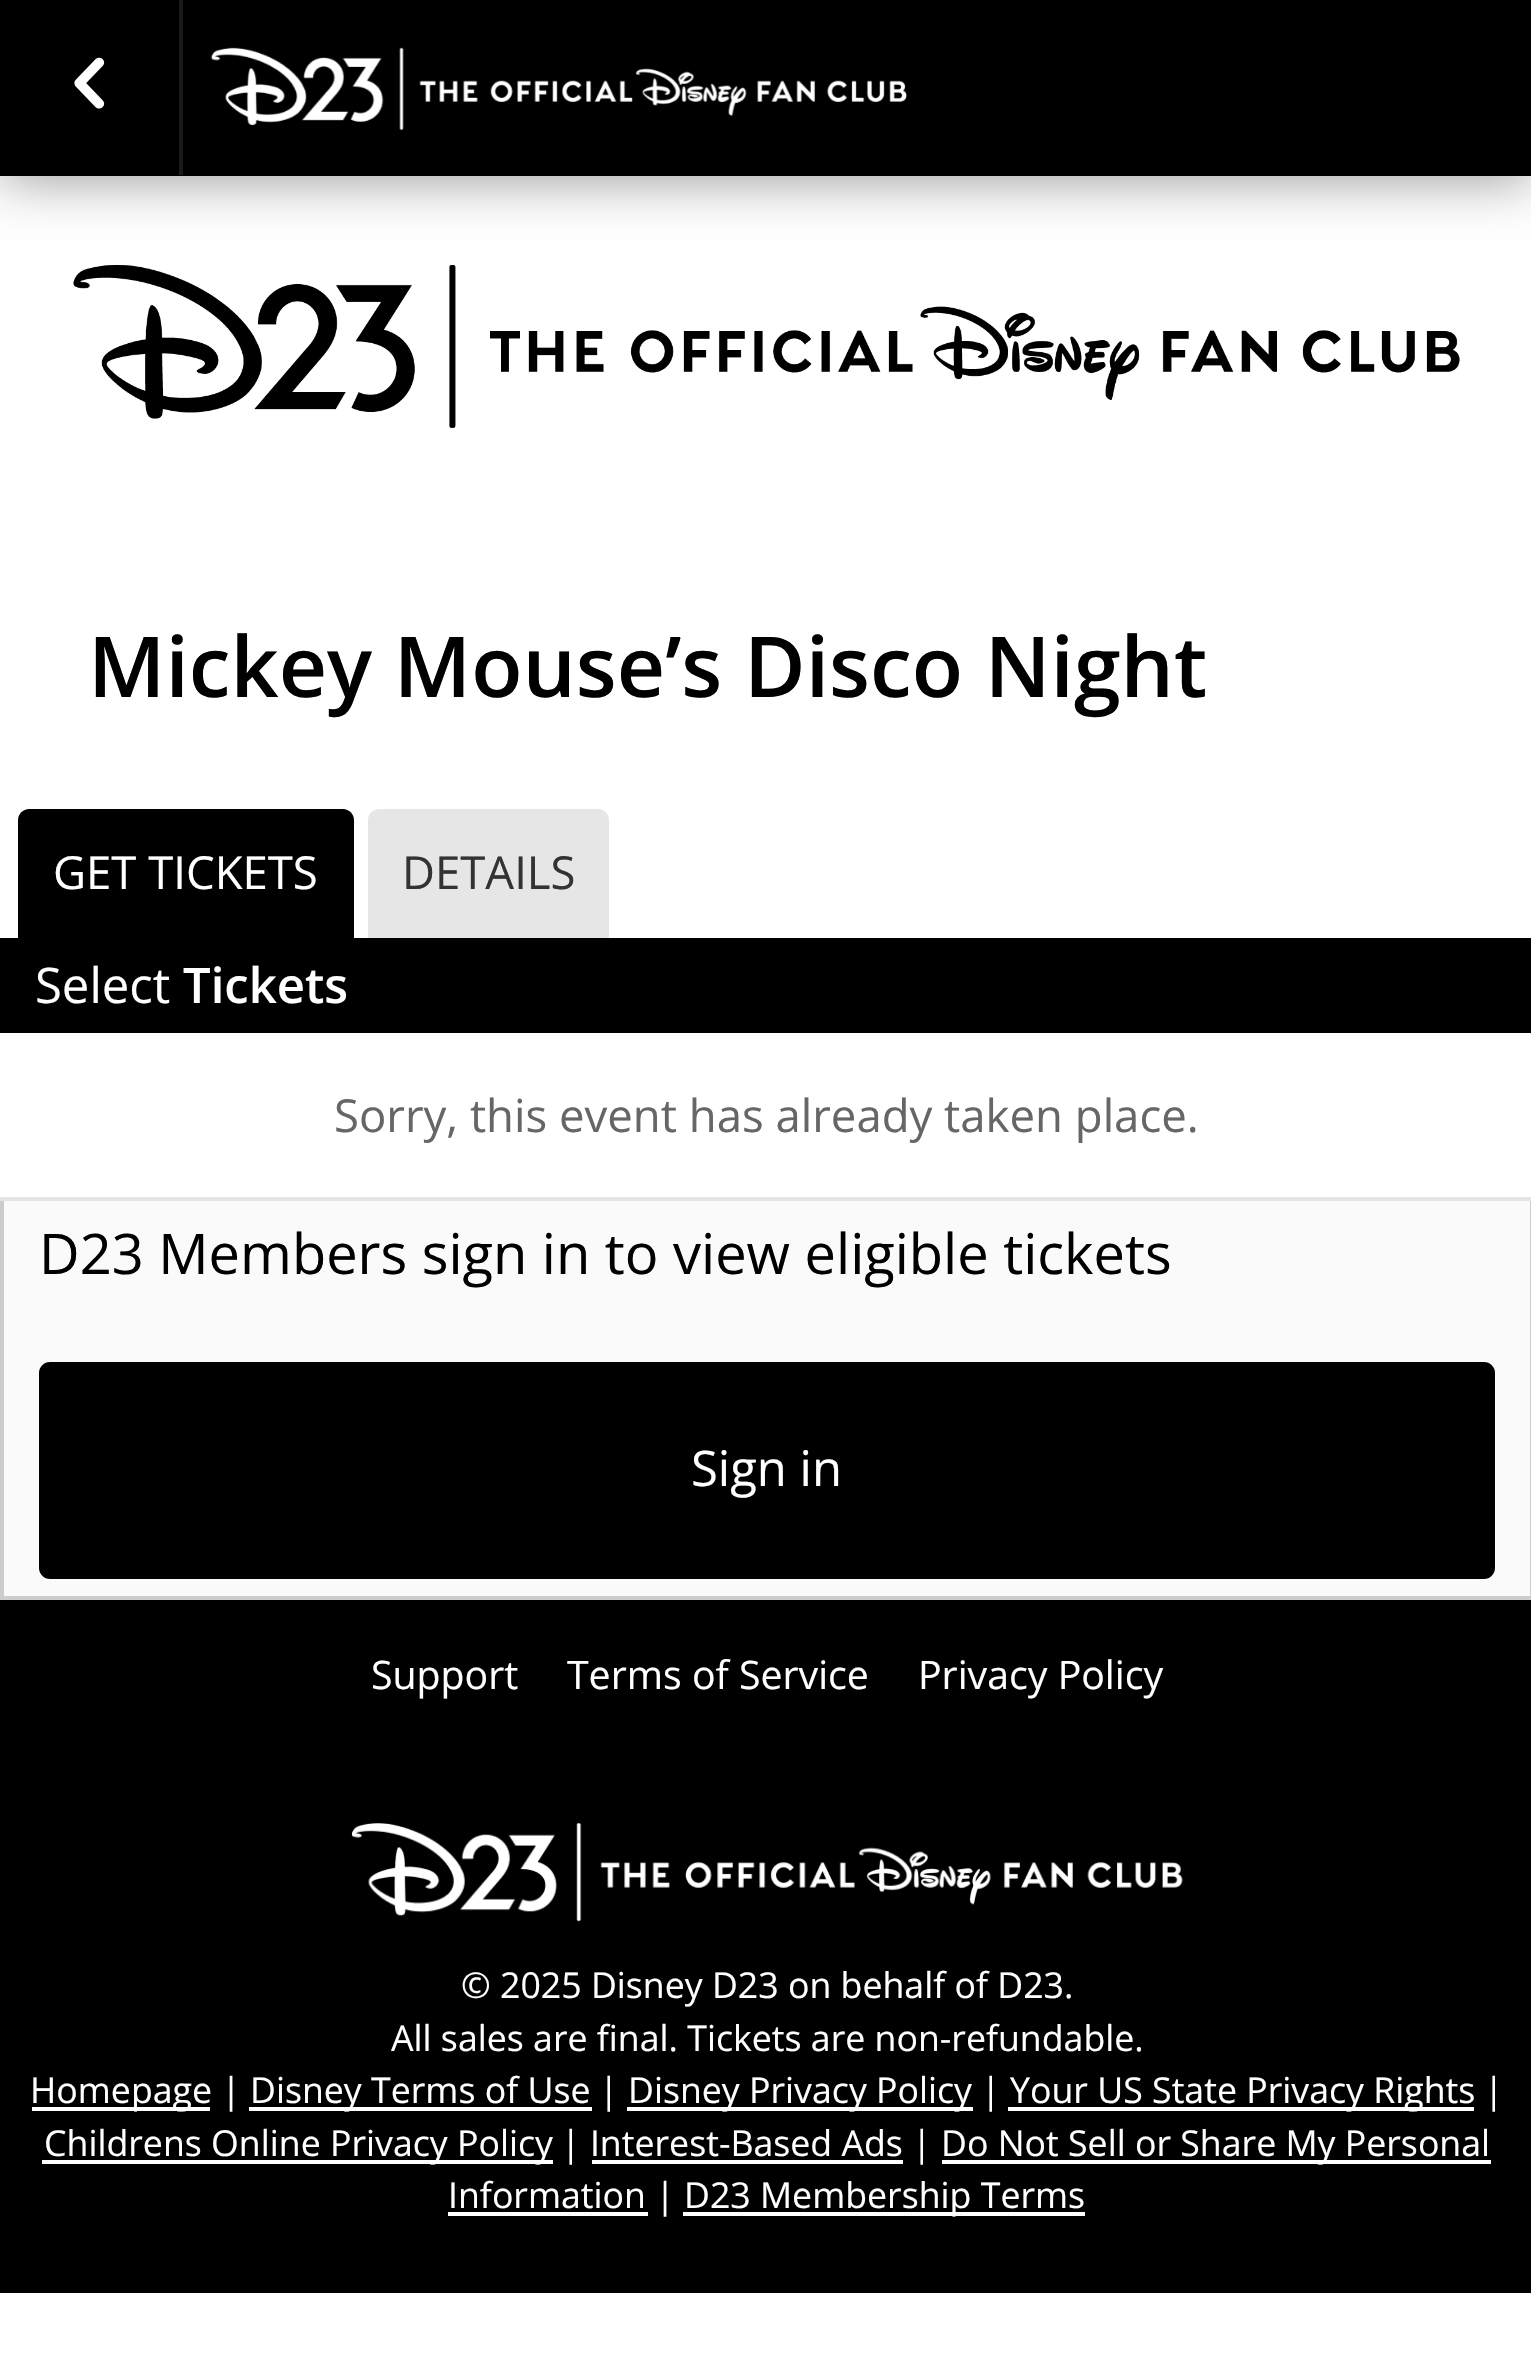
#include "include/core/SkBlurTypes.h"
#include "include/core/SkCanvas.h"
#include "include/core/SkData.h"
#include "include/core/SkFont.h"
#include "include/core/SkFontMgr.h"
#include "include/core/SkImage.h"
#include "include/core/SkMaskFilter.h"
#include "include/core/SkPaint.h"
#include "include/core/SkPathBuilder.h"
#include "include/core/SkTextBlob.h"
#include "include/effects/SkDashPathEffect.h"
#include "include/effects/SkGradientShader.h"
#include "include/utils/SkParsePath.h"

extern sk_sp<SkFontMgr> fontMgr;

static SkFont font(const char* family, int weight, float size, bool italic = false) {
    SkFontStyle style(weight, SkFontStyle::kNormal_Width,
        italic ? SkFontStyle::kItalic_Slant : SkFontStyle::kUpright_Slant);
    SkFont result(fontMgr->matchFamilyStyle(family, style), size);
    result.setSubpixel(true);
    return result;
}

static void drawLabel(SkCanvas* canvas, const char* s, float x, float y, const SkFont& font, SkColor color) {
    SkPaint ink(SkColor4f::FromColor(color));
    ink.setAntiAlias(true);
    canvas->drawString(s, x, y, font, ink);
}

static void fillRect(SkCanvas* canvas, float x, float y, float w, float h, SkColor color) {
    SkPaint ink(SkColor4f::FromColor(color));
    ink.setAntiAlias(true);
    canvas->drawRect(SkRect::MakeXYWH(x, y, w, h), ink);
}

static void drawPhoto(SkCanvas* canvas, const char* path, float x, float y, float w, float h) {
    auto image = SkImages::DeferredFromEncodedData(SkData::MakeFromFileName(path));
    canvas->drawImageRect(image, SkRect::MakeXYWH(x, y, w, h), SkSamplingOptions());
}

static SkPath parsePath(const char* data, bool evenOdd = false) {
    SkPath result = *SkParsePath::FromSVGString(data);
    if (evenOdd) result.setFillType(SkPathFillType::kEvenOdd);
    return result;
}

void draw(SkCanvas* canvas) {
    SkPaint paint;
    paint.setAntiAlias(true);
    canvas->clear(0xFFFFFFFF);
    paint.setColor(0x66000000);
    paint.setMaskFilter(SkMaskFilter::MakeBlur(kNormal_SkBlurStyle, 26));
    canvas->drawRect(SkRect::MakeXYWH(0, 4, 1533, 175), paint);
    paint.setMaskFilter(nullptr);
    fillRect(canvas, 0, 0, 1531, 176, 0xFF000000);
    fillRect(canvas, 179, 0, 4, 175, 0xFF1A1A1A);
    drawPhoto(canvas, "assets/img1.png", 74, 57, 31, 52);
    drawPhoto(canvas, "assets/img2.png", 211, 47, 696, 83);
    drawPhoto(canvas, "assets/img3.png", 73, 265, 1387, 163);
    SkFont font1 = font("Open Sans", 600, 84);
    drawLabel(canvas, "Mickey Mouse’s Disco Night", 88, 697, font1, 0xFF000000);
    paint.setColor(0xFF000000);
    canvas->drawPath(parsePath("M29 809H343C349 809 354 814 354 820V938H18V820C18 814 23 809 29 809Z"), paint);
    SkFont font2 = font("Open Sans", 400, 45.5f);
    drawLabel(canvas, "GET TICKETS", 53, 889, font2, 0xFFFFFFFF);
    paint.setColor(0xFFE6E6E6);
    canvas->drawPath(parsePath("M379 809H598C604 809 609 814 609 820V938H368V820C368 814 373 809 379 809Z"), paint);
    drawLabel(canvas, "DETAILS", 402, 889, font2, 0xFF333333);
    fillRect(canvas, 0, 938, 1531, 95, 0xFF000000);
    SkFont font3 = font("Open Sans", 400, 49);
    drawLabel(canvas, "Select", 35, 1003, font3, 0xFFFFFFFF);
    SkFont font4 = font("Open Sans", 600, 49);
    drawLabel(canvas, "Tickets", 183, 1003, font4, 0xFFFFFFFF);
    fillRect(canvas, 0, 1197, 1531, 4, 0xFFE5E5E5);
    drawLabel(canvas, "Sorry, this event has already taken place.", 334, 1132, font2, 0xFF666666);
    fillRect(canvas, 4, 1201, 1526, 395, 0xFFFAFAFA);
    fillRect(canvas, 1530, 1201, 1, 399, 0xFFCCCCCC);
    fillRect(canvas, 0, 1596, 1531, 4, 0xFFCCCCCC);
    fillRect(canvas, 0, 1201, 4, 399, 0xFFCCCCCC);
    SkFont font5 = font("Open Sans", 400, 56);
    drawLabel(canvas, "D23 Members sign in to view eligible tickets", 39, 1274, font5, 0xFF000000);
    paint.setColor(0xFF000000);
    canvas->drawRoundRect(SkRect::MakeXYWH(41, 1364, 1452, 213), 9, 9, paint);
    paint.setStroke(true);
    paint.setStrokeWidth(4);
    canvas->drawRoundRect(SkRect::MakeXYWH(41, 1364, 1452, 213), 9, 9, paint);
    drawLabel(canvas, "Sign in", 691, 1486, font3, 0xFFFFFFFF);
    fillRect(canvas, 0, 1600, 1531, 693, 0xFF000000);
    SkFont font6 = font("Open Sans", 400, 39.25f);
    drawLabel(canvas, "Support", 371, 1689, font6, 0xFFFFFFFF);
    drawLabel(canvas, "Terms of Service", 567, 1689, font6, 0xFFFFFFFF);
    drawLabel(canvas, "Privacy Policy", 918, 1689, font6, 0xFFFFFFFF);
    drawPhoto(canvas, "assets/img4.png", 351, 1823, 832, 99);
    SkFont font7 = font("Open Sans", 400, 35.7f);
    drawLabel(canvas, "© 2025 Disney D23 on behalf of D23.", 461, 1998, font7, 0xFFFFFFFF);
    drawLabel(canvas, "All sales are final. Tickets are non-refundable.", 391, 2051, font7, 0xFFFFFFFF);
    fillRect(canvas, 32, 2107, 178, 4, 0xFFFFFFFF);
    drawLabel(canvas, "Homepage |", 30, 2103, font7, 0xFFFFFFFF);
    fillRect(canvas, 249, 2107, 343, 4, 0xFFFFFFFF);
    drawLabel(canvas, "Disney Terms of Use", 250, 2103, font7, 0xFFFFFFFF);
    drawLabel(canvas, "|", 599, 2103, font7, 0xFFFFFFFF);
    fillRect(canvas, 627, 2107, 346, 4, 0xFFFFFFFF);
    drawLabel(canvas, "Disney Privacy Policy", 628, 2103, font7, 0xFFFFFFFF);
    drawLabel(canvas, "|", 981, 2103, font7, 0xFFFFFFFF);
    fillRect(canvas, 1008, 2107, 466, 4, 0xFFFFFFFF);
    drawLabel(canvas, "Your US State Privacy Rights", 1010, 2103, font7, 0xFFFFFFFF);
    drawLabel(canvas, "|", 1484, 2103, font7, 0xFFFFFFFF);
    fillRect(canvas, 42, 2160, 511, 4, 0xFFFFFFFF);
    drawLabel(canvas, "Childrens Online Privacy Policy", 44, 2156, font7, 0xFFFFFFFF);
    drawLabel(canvas, "| Interest-Based Ads", 561, 2156, font7, 0xFFFFFFFF);
    drawLabel(canvas, "|", 912, 2156, font7, 0xFFFFFFFF);
    fillRect(canvas, 942, 2160, 549, 4, 0xFFFFFFFF);
    drawLabel(canvas, "Do Not Sell or Share My Personal", 941, 2156, font7, 0xFFFFFFFF);
    fillRect(canvas, 592, 2160, 311, 4, 0xFFFFFFFF);
    fillRect(canvas, 448, 2212, 200, 4, 0xFFFFFFFF);
    drawLabel(canvas, "Information |", 448, 2208, font7, 0xFFFFFFFF);
    fillRect(canvas, 683, 2212, 402, 4, 0xFFFFFFFF);
    drawLabel(canvas, "D23 Membership Terms", 684, 2208, font7, 0xFFFFFFFF);
}
